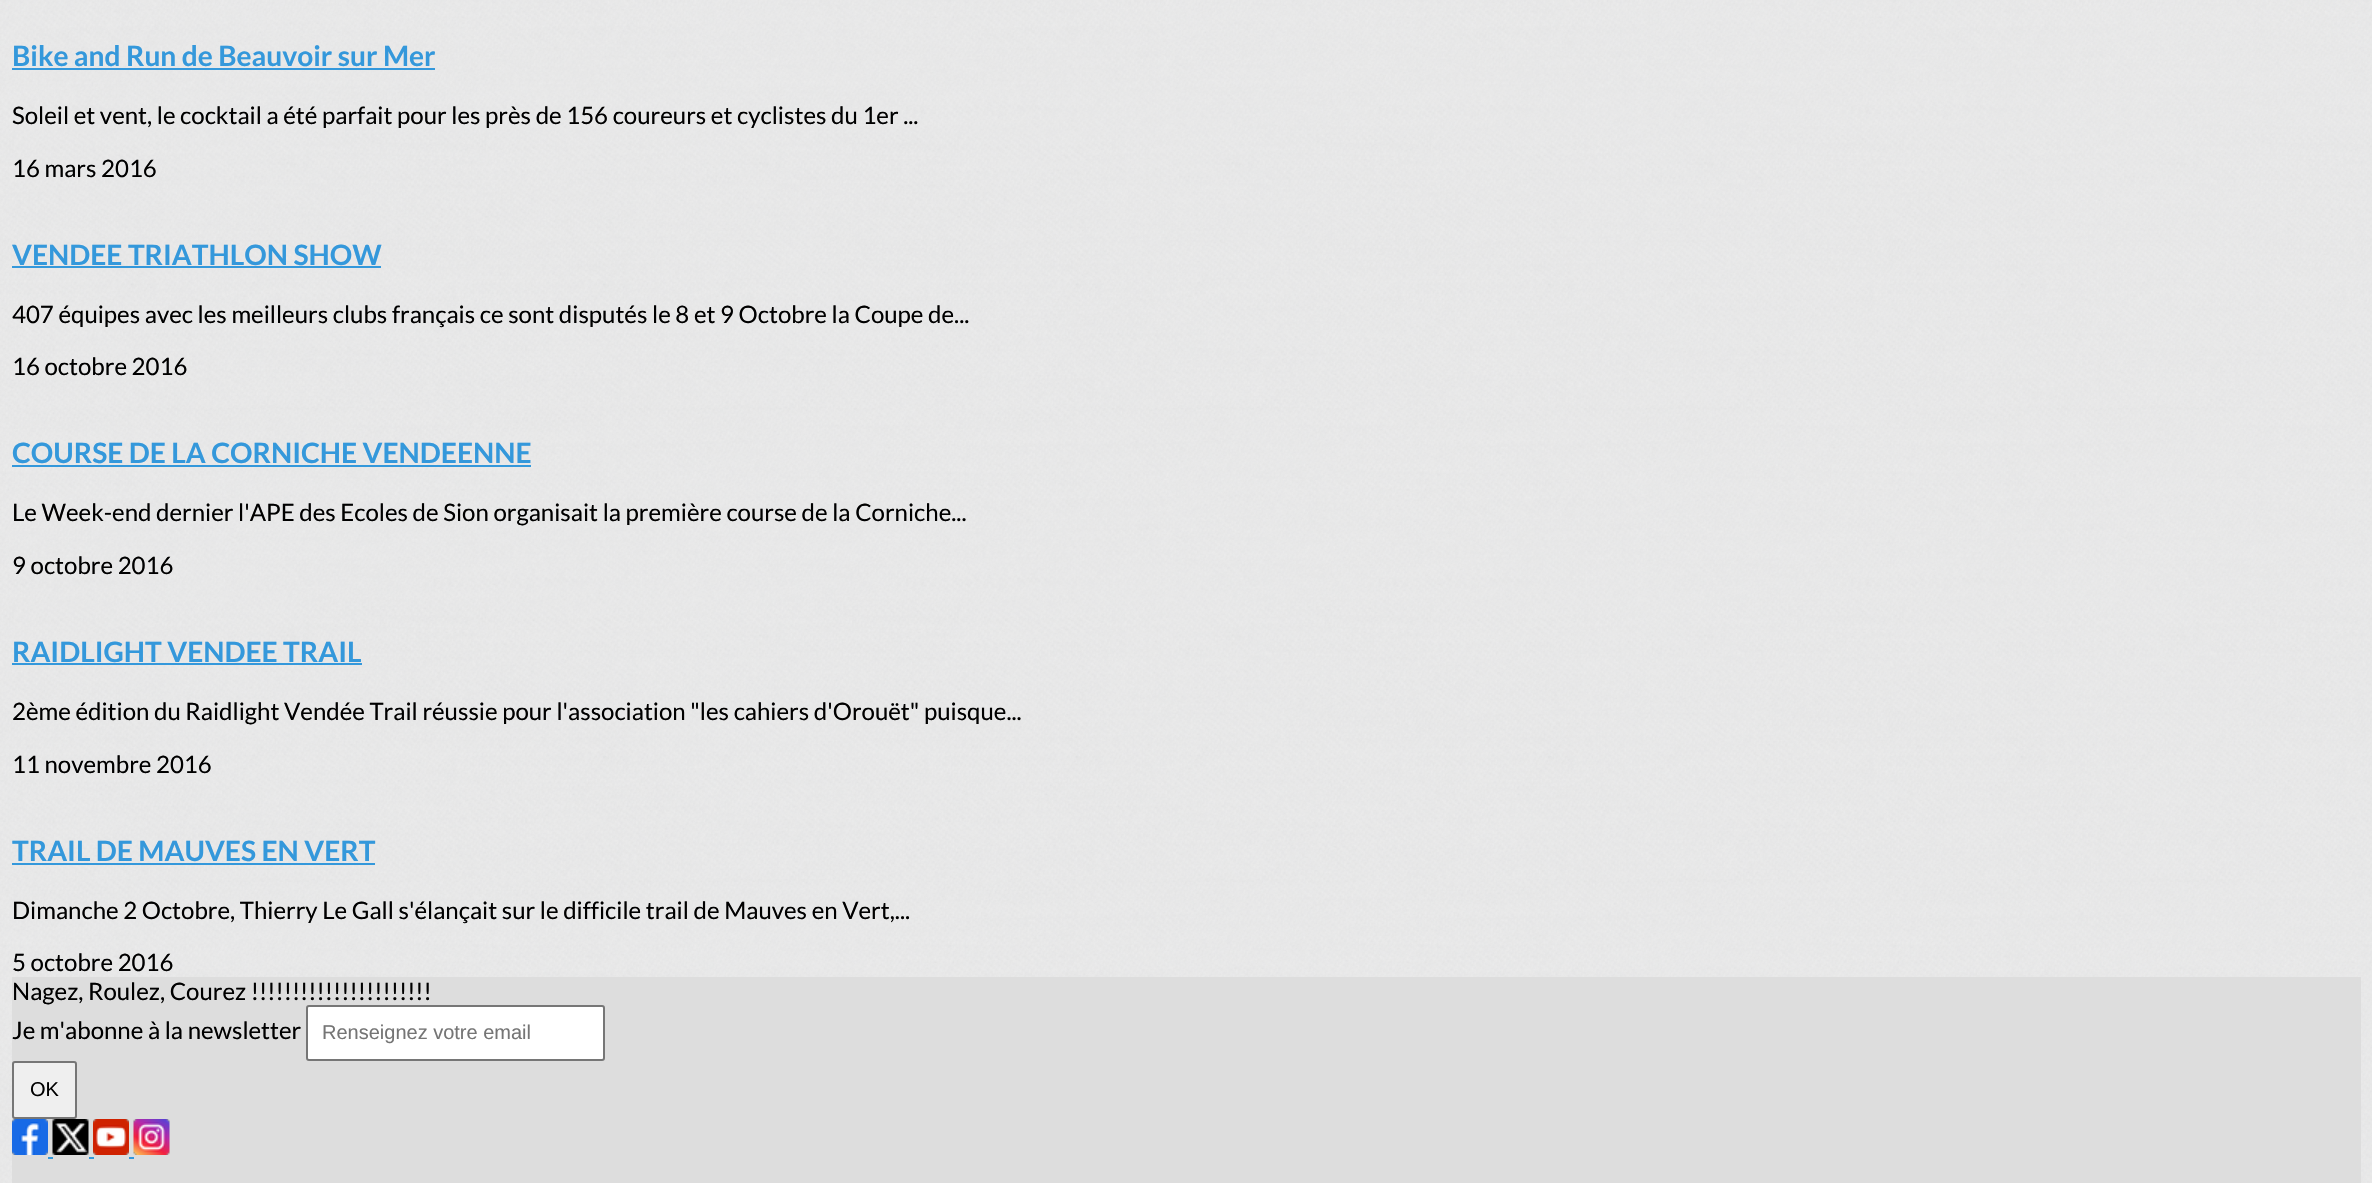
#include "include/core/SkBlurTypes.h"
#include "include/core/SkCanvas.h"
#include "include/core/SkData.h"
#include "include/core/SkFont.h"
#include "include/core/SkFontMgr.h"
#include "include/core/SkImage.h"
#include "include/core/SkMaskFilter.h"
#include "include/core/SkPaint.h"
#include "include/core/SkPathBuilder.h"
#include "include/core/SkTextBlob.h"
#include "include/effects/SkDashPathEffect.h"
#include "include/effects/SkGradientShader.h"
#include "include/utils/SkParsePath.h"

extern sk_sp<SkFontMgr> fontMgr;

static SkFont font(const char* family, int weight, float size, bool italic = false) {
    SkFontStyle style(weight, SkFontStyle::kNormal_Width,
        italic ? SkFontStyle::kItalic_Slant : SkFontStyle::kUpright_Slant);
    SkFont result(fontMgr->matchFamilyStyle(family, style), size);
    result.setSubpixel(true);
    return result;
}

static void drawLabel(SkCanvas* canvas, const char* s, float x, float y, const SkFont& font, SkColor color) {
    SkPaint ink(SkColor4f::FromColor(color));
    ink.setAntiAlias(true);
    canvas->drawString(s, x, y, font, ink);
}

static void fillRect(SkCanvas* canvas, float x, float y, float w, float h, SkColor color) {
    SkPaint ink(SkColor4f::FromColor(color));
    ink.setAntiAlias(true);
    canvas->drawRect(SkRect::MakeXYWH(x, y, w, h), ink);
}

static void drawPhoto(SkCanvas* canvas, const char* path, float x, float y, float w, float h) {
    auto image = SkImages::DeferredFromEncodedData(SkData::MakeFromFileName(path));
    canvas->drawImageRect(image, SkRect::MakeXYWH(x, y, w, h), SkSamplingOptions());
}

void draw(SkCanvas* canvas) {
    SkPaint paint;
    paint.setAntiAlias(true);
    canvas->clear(0xFFEEEEEE);
    drawPhoto(canvas, "assets/img1.png", 0, 0, 2372, 1183);
    SkFont font1 = font("Lato", 700, 28.1f);
    drawLabel(canvas, "Bike and Run de Beauvoir sur Mer", 12, 66, font1, 0xFF3498DB);
    fillRect(canvas, 12, 68, 423, 2, 0xFF3498DB);
    SkFont font2 = font("Lato", 400, 24);
    drawLabel(canvas, "Soleil et vent, le cocktail a été parfait pour les près de 156 coureurs et cyclistes du 1er ...", 12, 124, font2, 0xFF000000);
    drawLabel(canvas, "16 mars 2016", 12, 177, font2, 0xFF000000);
    drawLabel(canvas, "VENDEE TRIATHLON SHOW", 12, 265, font1, 0xFF3498DB);
    fillRect(canvas, 12, 266, 369, 2, 0xFF3498DB);
    drawLabel(canvas, "407 équipes avec les meilleurs clubs français ce sont disputés le 8 et 9 Octobre la Coupe de...", 12, 323, font2, 0xFF000000);
    drawLabel(canvas, "16 octobre 2016", 12, 375, font2, 0xFF000000);
    drawLabel(canvas, "COURSE DE LA CORNICHE VENDEENNE", 12, 463, font1, 0xFF3498DB);
    fillRect(canvas, 12, 465, 519, 2, 0xFF3498DB);
    drawLabel(canvas, "Le Week-end dernier l'APE des Ecoles de Sion organisait la première course de la Corniche...", 12, 521, font2, 0xFF000000);
    drawLabel(canvas, "9 octobre 2016", 12, 574, font2, 0xFF000000);
    drawLabel(canvas, "RAIDLIGHT VENDEE TRAIL", 12, 662, font1, 0xFF3498DB);
    fillRect(canvas, 12, 663, 350, 2, 0xFF3498DB);
    drawLabel(canvas, "2ème édition du Raidlight Vendée Trail réussie pour l'association \"les cahiers d'Orouët\" puisque...", 12, 720, font2, 0xFF000000);
    drawLabel(canvas, "11 novembre 2016", 12, 773, font2, 0xFF000000);
    drawLabel(canvas, "TRAIL DE MAUVES EN VERT", 12, 861, font1, 0xFF3498DB);
    fillRect(canvas, 12, 863, 363, 2, 0xFF3498DB);
    drawLabel(canvas, "Dimanche 2 Octobre, Thierry Le Gall s'élançait sur le difficile trail de Mauves en Vert,...", 12, 919, font2, 0xFF000000);
    drawLabel(canvas, "5 octobre 2016", 12, 971, font2, 0xFF000000);
    fillRect(canvas, 12, 977, 2349, 206, 0xFFDDDDDD);
    drawLabel(canvas, "Nagez, Roulez, Courez !!!!!!!!!!!!!!!!!!!!!!", 12, 1000, font2, 0xFF000000);
    drawLabel(canvas, "Je m'abonne à la newsletter", 12, 1039, font2, 0xFF000000);
    paint.setColor(0xFFFFFFFF);
    canvas->drawRoundRect(SkRect::MakeXYWH(307, 1006, 297, 54), 2, 2, paint);
    paint.setStroke(true);
    paint.setStrokeWidth(2);
    paint.setColor(0xFF767676);
    canvas->drawRoundRect(SkRect::MakeXYWH(307, 1006, 297, 54), 2, 2, paint);
    SkFont font3 = font("Liberation Sans", 400, 20);
    drawLabel(canvas, "Renseignez votre email", 322, 1039, font3, 0xFF757575);
    paint.setStroke(false);
    paint.setColor(0xFFEFEFEF);
    canvas->drawRoundRect(SkRect::MakeXYWH(13, 1062, 63, 56), 2, 2, paint);
    paint.setStroke(true);
    paint.setColor(0xFF767676);
    canvas->drawRoundRect(SkRect::MakeXYWH(13, 1062, 63, 56), 2, 2, paint);
    drawLabel(canvas, "OK", 30, 1096, font3, 0xFF000000);
    drawPhoto(canvas, "assets/img2.png", 12, 1119, 36, 36);
    drawPhoto(canvas, "assets/img3.png", 52, 1119, 37, 36);
    drawPhoto(canvas, "assets/img4.png", 93, 1119, 36, 36);
    drawPhoto(canvas, "assets/img5.png", 133, 1119, 37, 36);
    fillRect(canvas, 48, 1157, 5, 2, 0xFF3498DB);
    fillRect(canvas, 89, 1157, 5, 2, 0xFF3498DB);
    fillRect(canvas, 129, 1157, 5, 2, 0xFF3498DB);
}
